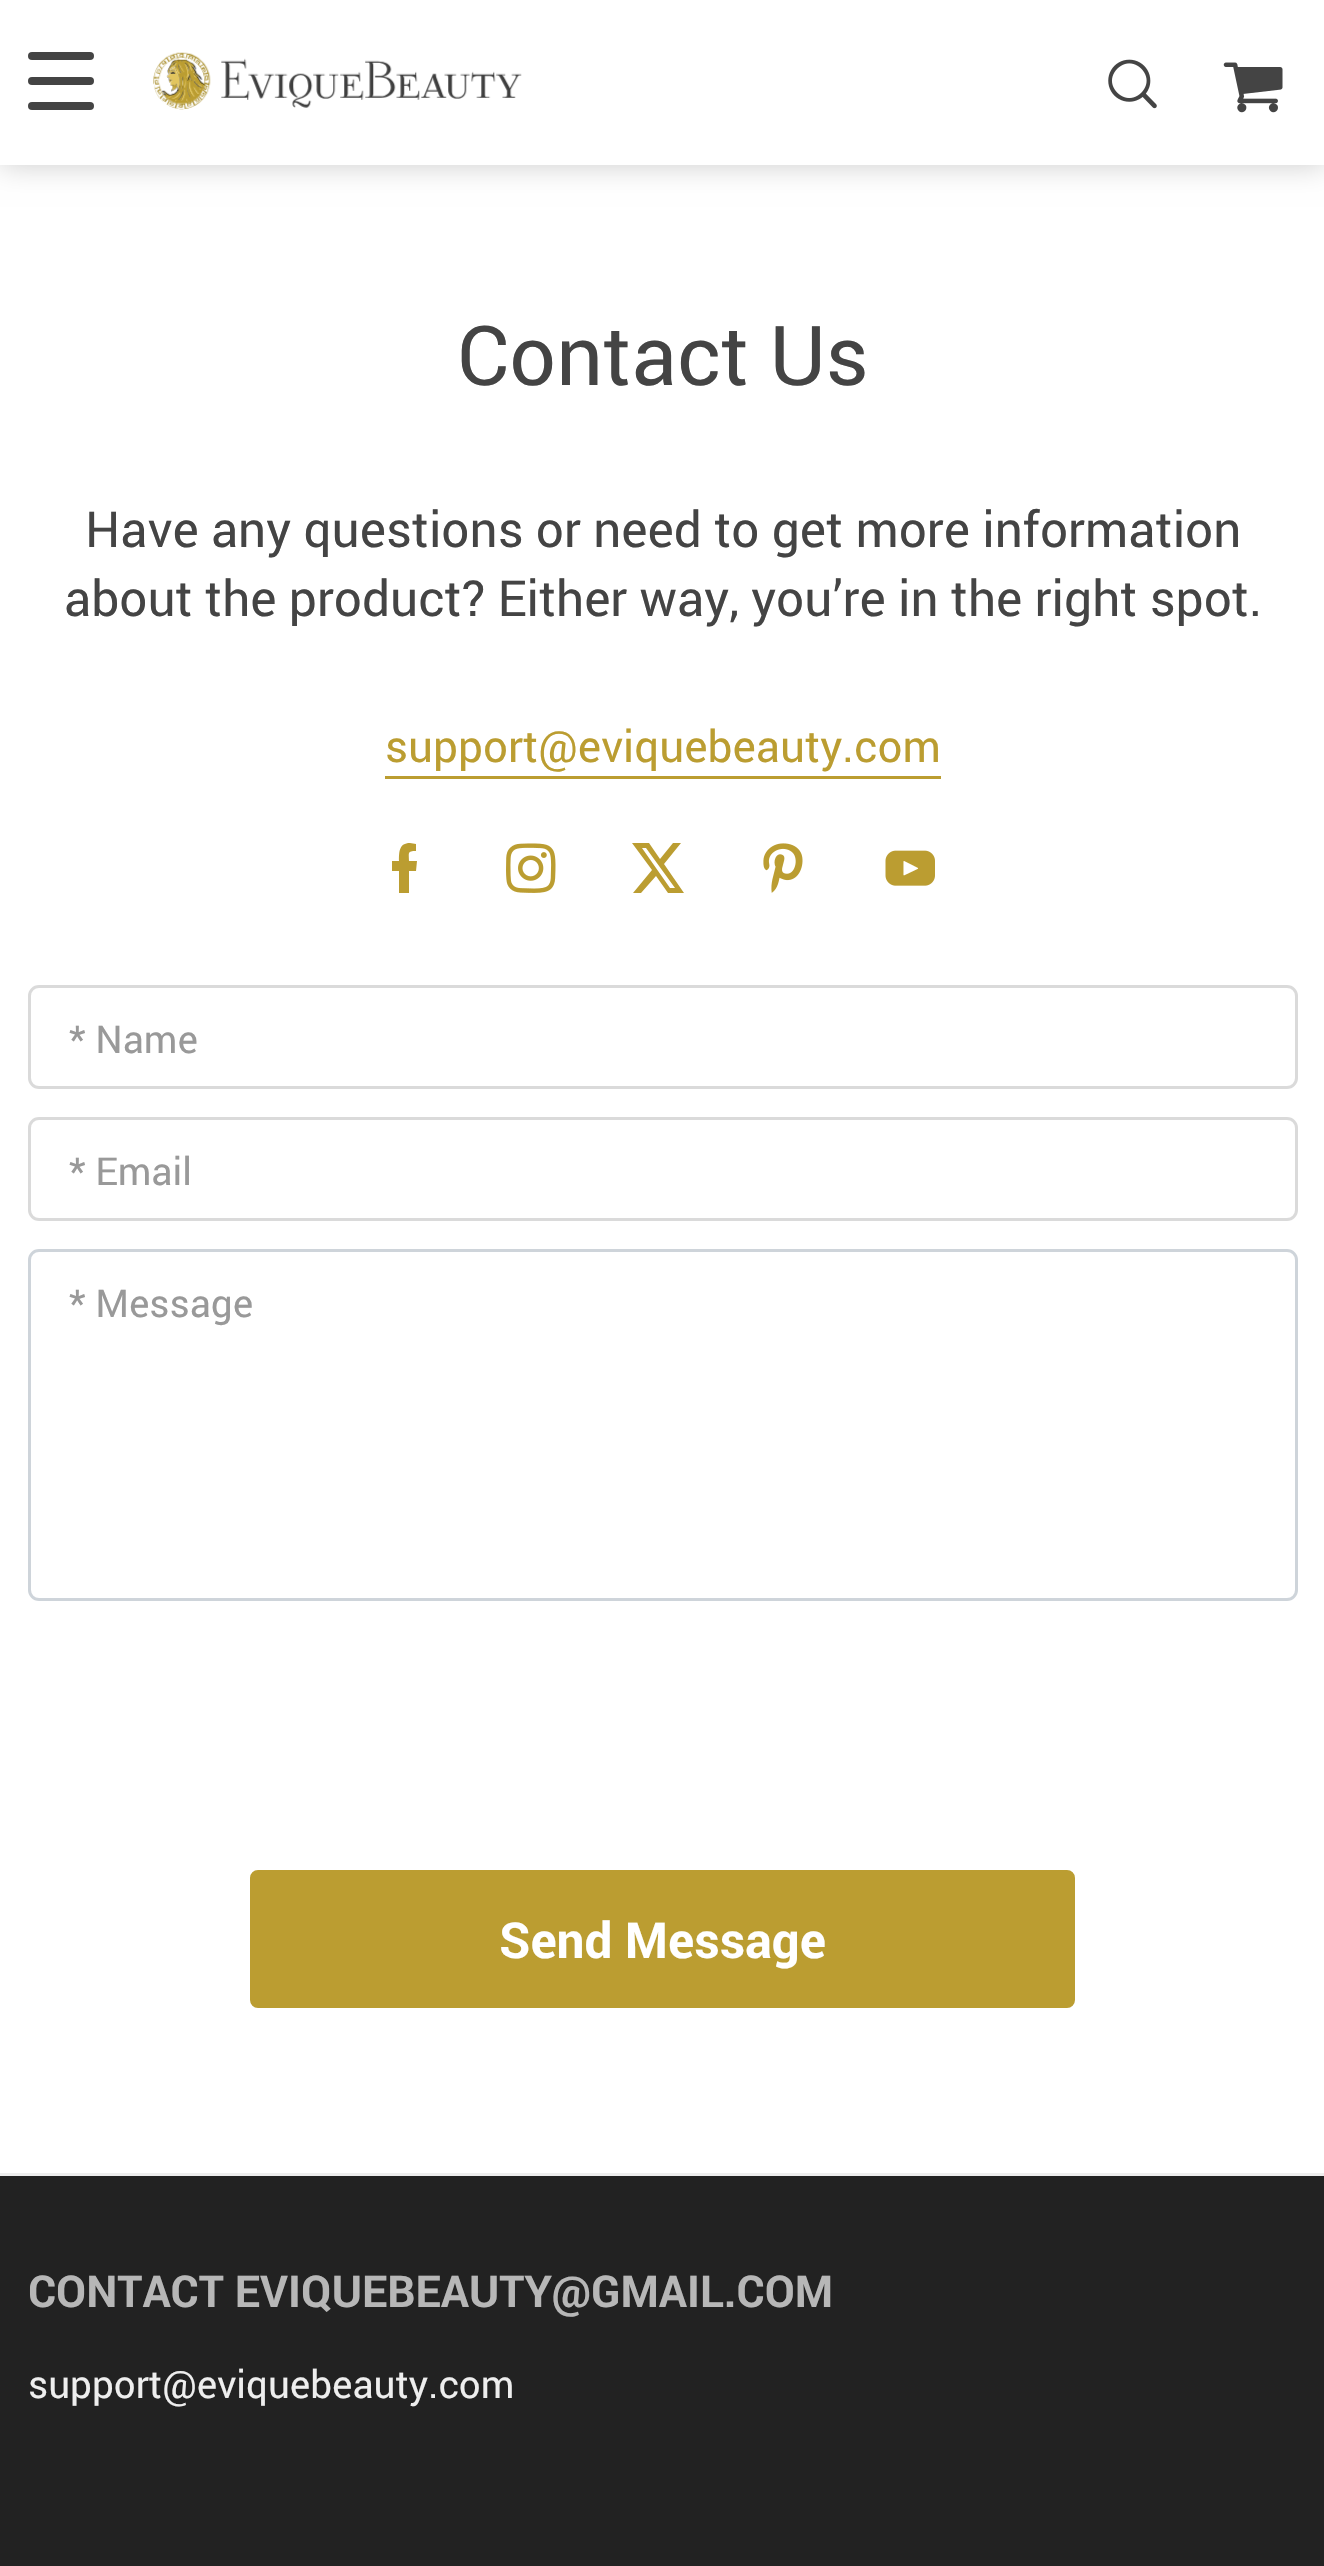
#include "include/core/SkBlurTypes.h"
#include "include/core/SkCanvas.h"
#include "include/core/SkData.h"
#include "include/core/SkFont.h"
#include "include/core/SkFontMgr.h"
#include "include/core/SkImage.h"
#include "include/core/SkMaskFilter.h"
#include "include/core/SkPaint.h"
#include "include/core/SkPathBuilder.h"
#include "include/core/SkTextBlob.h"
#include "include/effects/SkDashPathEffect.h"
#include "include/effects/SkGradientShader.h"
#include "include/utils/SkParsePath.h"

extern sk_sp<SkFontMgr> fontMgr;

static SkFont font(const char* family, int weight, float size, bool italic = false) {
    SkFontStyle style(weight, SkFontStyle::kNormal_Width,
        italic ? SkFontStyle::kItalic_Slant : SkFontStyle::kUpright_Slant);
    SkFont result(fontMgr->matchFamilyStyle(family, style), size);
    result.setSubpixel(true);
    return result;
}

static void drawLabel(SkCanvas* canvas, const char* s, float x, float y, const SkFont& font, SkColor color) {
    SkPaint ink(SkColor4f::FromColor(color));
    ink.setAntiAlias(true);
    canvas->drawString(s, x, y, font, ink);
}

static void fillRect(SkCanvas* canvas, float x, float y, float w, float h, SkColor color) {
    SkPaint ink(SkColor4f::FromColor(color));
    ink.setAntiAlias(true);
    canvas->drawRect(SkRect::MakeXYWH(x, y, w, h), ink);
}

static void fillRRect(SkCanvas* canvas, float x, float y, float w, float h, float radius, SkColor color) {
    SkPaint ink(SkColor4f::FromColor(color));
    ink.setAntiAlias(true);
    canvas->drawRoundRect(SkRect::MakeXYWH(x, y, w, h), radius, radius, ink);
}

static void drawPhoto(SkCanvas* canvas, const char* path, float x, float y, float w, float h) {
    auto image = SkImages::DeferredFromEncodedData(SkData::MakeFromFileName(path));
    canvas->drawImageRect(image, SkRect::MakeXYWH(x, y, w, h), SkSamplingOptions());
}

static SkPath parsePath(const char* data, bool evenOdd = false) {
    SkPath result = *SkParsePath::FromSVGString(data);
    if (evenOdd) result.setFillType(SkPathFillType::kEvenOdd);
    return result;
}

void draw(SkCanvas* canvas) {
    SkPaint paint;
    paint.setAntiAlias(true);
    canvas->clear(0xFFFFFFFF);
    paint.setColor(0xFFCCCCCC);
    paint.setMaskFilter(SkMaskFilter::MakeBlur(kNormal_SkBlurStyle, 14));
    canvas->drawRect(SkRect::MakeXYWH(0, 0, 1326, 165), paint);
    paint.setMaskFilter(nullptr);
    fillRect(canvas, 0, 0, 1324, 165, 0xFFFFFFFF);
    fillRRect(canvas, 28, 52, 66, 8, 4, 0xFF444444);
    fillRRect(canvas, 28, 77, 66, 8, 4, 0xFF444444);
    fillRRect(canvas, 28, 102, 66, 8, 4, 0xFF444444);
    drawPhoto(canvas, "assets/img1.png", 153, 52, 369, 58);
    drawPhoto(canvas, "assets/img2.png", 1108, 59, 49, 50);
    drawPhoto(canvas, "assets/img3.png", 1223, 62, 60, 51);
    SkFont font1 = font("Roboto", 400, 82.5f);
    drawLabel(canvas, "Contact Us", 457, 385, font1, 0xFF444444);
    SkFont font2 = font("Roboto", 400, 49.5f);
    drawLabel(canvas, "Have any questions or need to get more information", 85, 547, font2, 0xFF444444);
    drawLabel(canvas, "about the product? Either way, you’re in the right spot.", 64, 616, font2, 0xFF444444);
    SkFont font3 = font("Roboto", 400, 44);
    drawLabel(canvas, "support@eviquebeauty.com", 385, 762, font3, 0xFFBB9D31);
    fillRect(canvas, 385, 776, 556, 3, 0xFFBB9D31);
    paint.setColor(0xFFBB9D31);
    canvas->drawPath(parsePath("M409 893V871H416L417 861H409C409 853 407 851 416 851V844L410 843C399 843 399 852 399 861H392V871H399V893Z"), paint);
    drawPhoto(canvas, "assets/img4.png", 506, 843, 50, 50);
    canvas->drawPath(parsePath("M673 843H681L664 864L684 893H668L656 876L641 893H633L652 870L632 843H649L660 859ZM670 888H675L646 848H642Z"), paint);
    drawPhoto(canvas, "assets/img5.png", 763, 843, 40, 50);
    drawPhoto(canvas, "assets/img6.png", 885, 850, 50, 36);
    paint.setStroke(true);
    paint.setStrokeWidth(3);
    paint.setColor(0xFFDADADA);
    canvas->drawRoundRect(SkRect::MakeXYWH(29.5f, 986.5f, 1267, 101), 9.5f, 9.5f, paint);
    SkFont font4 = font("Roboto", 400, 38.5f);
    drawLabel(canvas, "* Name", 69, 1053, font4, 0xFF999999);
    canvas->drawRoundRect(SkRect::MakeXYWH(29.5f, 1118.5f, 1267, 101), 9.5f, 9.5f, paint);
    drawLabel(canvas, "* Email", 69, 1185, font4, 0xFF999999);
    paint.setColor(0xFFCED4DA);
    canvas->drawRoundRect(SkRect::MakeXYWH(29.5f, 1250.5f, 1267, 349), 9.5f, 9.5f, paint);
    drawLabel(canvas, "* Message", 69, 1317, font4, 0xFF999999);
    paint.setStroke(false);
    paint.setColor(0xFFBB9D31);
    canvas->drawRoundRect(SkRect::MakeXYWH(251.5f, 1871.5f, 822, 135), 6.5f, 6.5f, paint);
    paint.setStroke(true);
    canvas->drawRoundRect(SkRect::MakeXYWH(251.5f, 1871.5f, 822, 135), 6.5f, 6.5f, paint);
    SkFont font5 = font("Roboto", 700, 49.5f);
    drawLabel(canvas, "Send Message", 499, 1958, font5, 0xFFFFFFFF);
    fillRect(canvas, 0, 2176, 1324, 390, 0xFF222222);
    fillRect(canvas, 0, 2173, 1324, 3, 0xFFEEEEEE);
    SkFont font6 = font("Roboto", 700, 44);
    drawLabel(canvas, "CONTACT EVIQUEBEAUTY@GMAIL.COM", 28, 2307, font6, 0xFFB7B7B7);
    drawLabel(canvas, "support@eviquebeauty.com", 28, 2398, font4, 0xFFEEEEEE);
}
